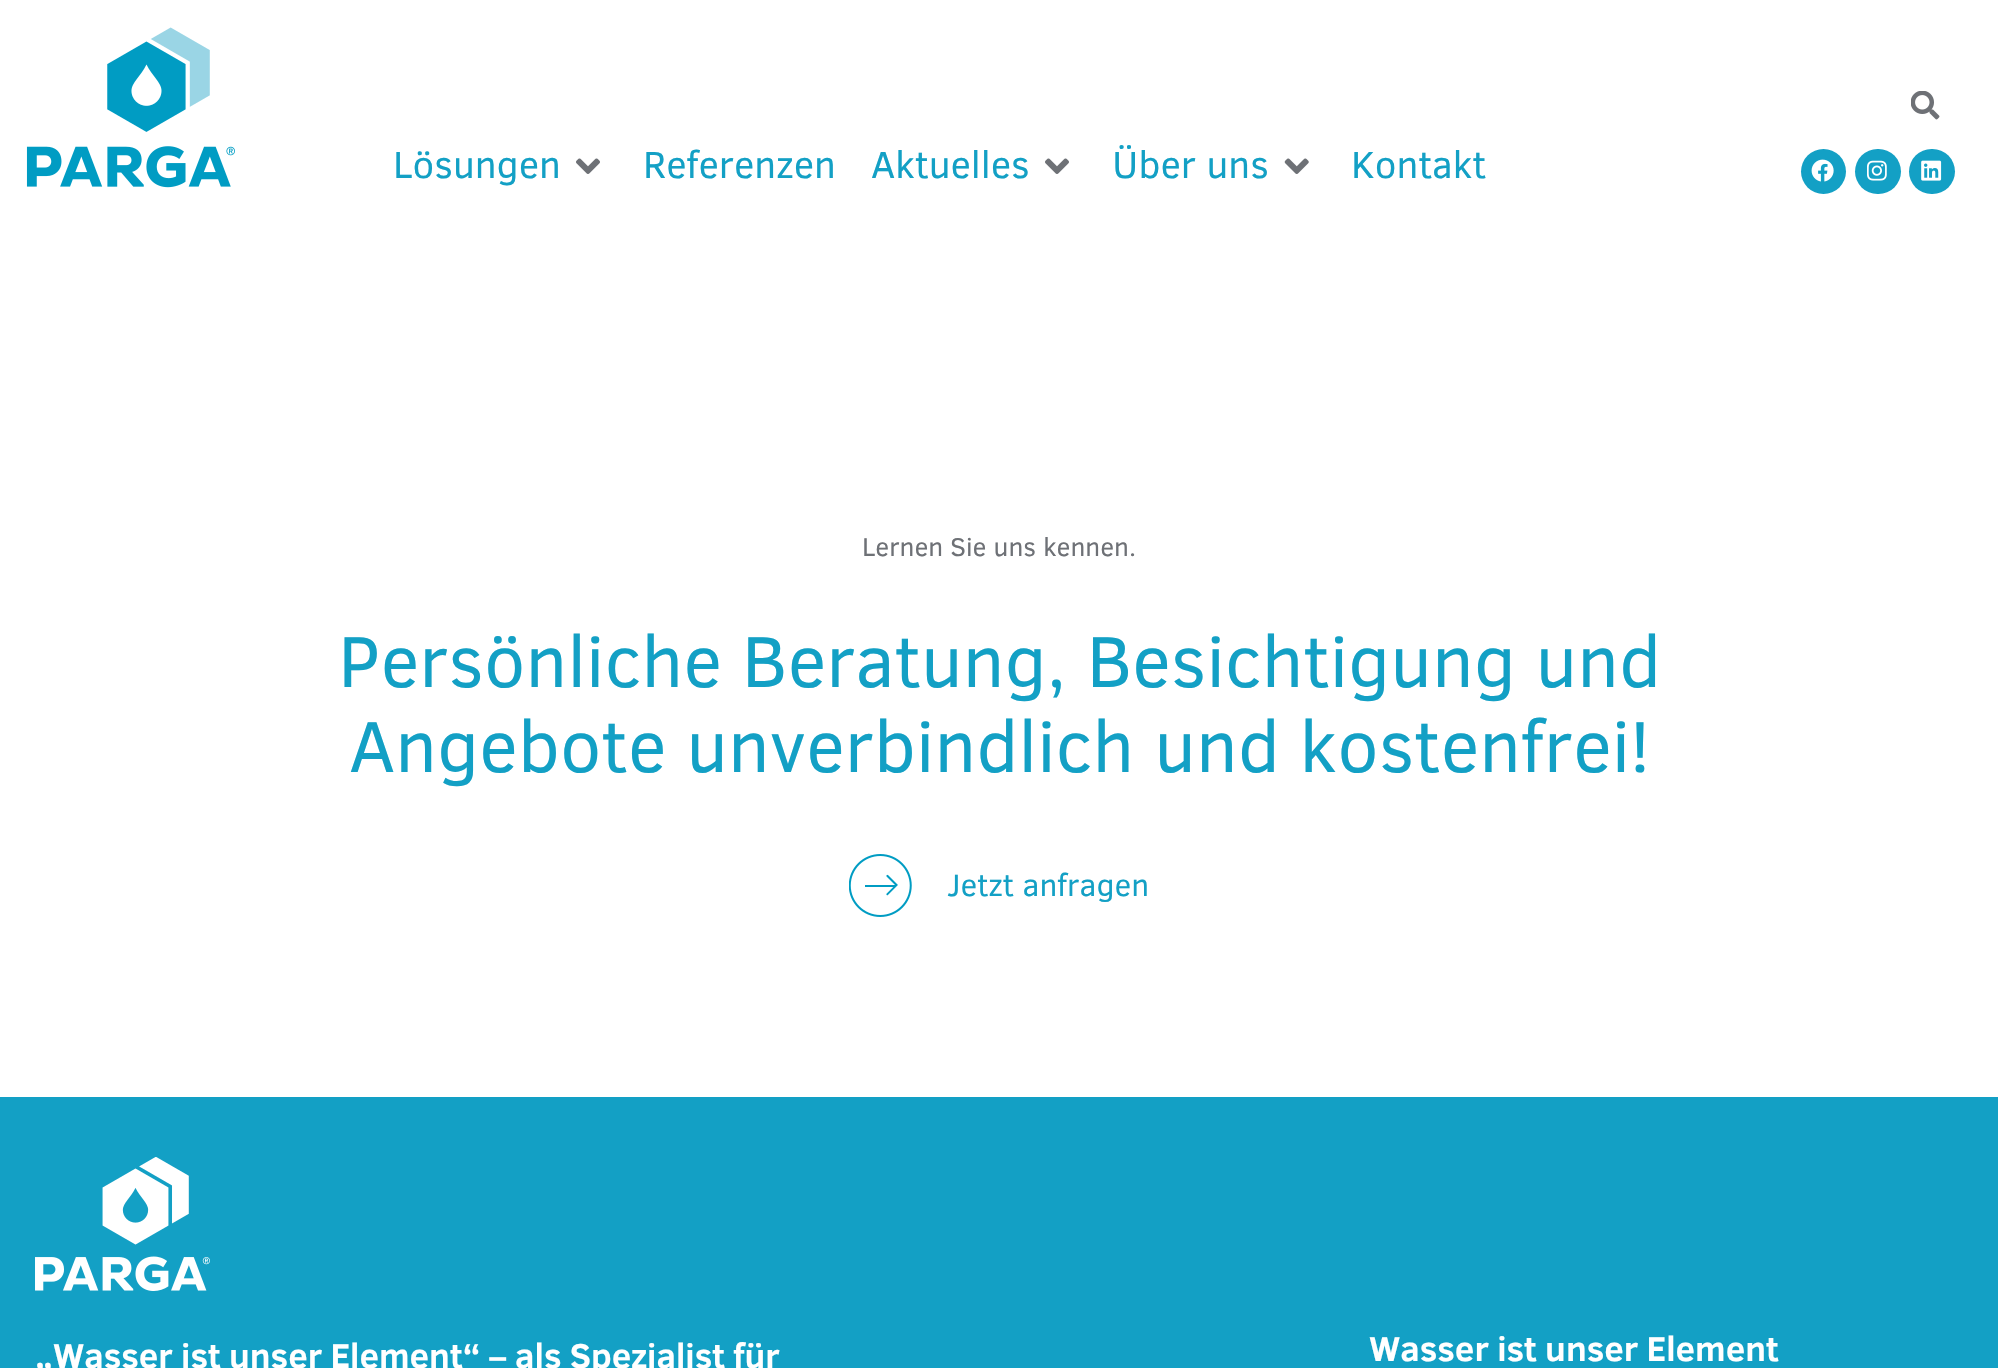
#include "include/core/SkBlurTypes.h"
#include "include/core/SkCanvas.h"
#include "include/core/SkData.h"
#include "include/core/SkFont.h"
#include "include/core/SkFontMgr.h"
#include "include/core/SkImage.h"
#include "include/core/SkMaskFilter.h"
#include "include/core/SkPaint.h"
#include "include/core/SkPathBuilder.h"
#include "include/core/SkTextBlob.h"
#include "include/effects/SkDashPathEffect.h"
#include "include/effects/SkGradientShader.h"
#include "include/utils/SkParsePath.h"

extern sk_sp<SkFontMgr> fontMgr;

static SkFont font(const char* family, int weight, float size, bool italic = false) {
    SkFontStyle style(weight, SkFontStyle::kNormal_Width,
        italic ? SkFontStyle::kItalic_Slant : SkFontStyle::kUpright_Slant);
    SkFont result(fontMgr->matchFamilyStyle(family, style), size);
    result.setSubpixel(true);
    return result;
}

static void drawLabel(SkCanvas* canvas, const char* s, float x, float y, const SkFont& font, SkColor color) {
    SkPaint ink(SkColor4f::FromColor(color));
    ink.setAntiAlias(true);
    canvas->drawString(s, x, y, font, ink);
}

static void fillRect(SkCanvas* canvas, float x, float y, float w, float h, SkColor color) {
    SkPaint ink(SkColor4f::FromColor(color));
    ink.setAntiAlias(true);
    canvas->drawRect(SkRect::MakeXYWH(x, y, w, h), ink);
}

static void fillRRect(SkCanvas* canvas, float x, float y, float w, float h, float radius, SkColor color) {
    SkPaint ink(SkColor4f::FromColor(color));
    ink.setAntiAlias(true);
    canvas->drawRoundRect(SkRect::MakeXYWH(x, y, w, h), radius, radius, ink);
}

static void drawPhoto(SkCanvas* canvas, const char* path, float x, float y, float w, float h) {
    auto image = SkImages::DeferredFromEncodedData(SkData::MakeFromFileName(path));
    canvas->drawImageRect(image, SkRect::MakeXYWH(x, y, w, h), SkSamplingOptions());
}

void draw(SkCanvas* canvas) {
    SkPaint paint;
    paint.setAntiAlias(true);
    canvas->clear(0xFFFFFFFF);
    drawPhoto(canvas, "assets/img1.png", 26, 27, 209, 161);
    SkFont font1 = font("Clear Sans", 400, 38.5f);
    drawLabel(canvas, "Lösungen", 393, 178, font1, 0xFF13A0C5);
    drawPhoto(canvas, "assets/img2.png", 576, 158, 24, 16);
    drawLabel(canvas, "Referenzen", 643, 178, font1, 0xFF13A0C5);
    drawLabel(canvas, "Aktuelles", 871, 178, font1, 0xFF13A0C5);
    drawPhoto(canvas, "assets/img2.png", 1045, 158, 24, 16);
    drawLabel(canvas, "Über uns", 1112, 178, font1, 0xFF13A0C5);
    drawPhoto(canvas, "assets/img3.png", 1284, 158, 25, 16);
    drawLabel(canvas, "Kontakt", 1351, 178, font1, 0xFF13A0C5);
    drawPhoto(canvas, "assets/img4.png", 1911, 91, 29, 29);
    paint.setColor(0xFF13A0C5);
    canvas->drawCircle(1823.5f, 171.5f, 22.5f, paint);
    drawPhoto(canvas, "assets/img5.png", 1811, 159, 23, 23);
    fillRRect(canvas, 1855, 149, 46, 45, 22.5f, 0xFF13A0C5);
    drawPhoto(canvas, "assets/img6.png", 1867, 160, 20, 21);
    fillRRect(canvas, 1909, 149, 46, 45, 22.5f, 0xFF13A0C5);
    drawPhoto(canvas, "assets/img7.png", 1921, 160, 21, 21);
    SkFont font2 = font("Clear Sans", 400, 26.25f);
    drawLabel(canvas, "Lernen Sie uns kennen.", 862, 556, font2, 0xFF6E7176);
    SkFont font3 = font("Clear Sans", 400, 73.5f);
    drawLabel(canvas, "Persönliche Beratung, Besichtigung und", 338, 687, font3, 0xFF13A0C5);
    drawLabel(canvas, "Angebote unverbindlich und kostenfrei!", 349, 772, font3, 0xFF13A0C5);
    drawPhoto(canvas, "assets/img8.png", 849, 854, 63, 63);
    SkFont font4 = font("Clear Sans", 400, 31.5f);
    drawLabel(canvas, "Jetzt anfragen", 947, 896, font4, 0xFF13A0C5);
    fillRect(canvas, 0, 1097, 1998, 271, 0xFF13A0C5);
    drawPhoto(canvas, "assets/img9.png", 35, 1157, 175, 134);
    SkFont font5 = font("Clear Sans", 700, 35);
    drawLabel(canvas, "„Wasser ist unser Element“ – als Spezialist für", 35, 1368, font5, 0xFFFFFFFF);
    drawLabel(canvas, "Wasser ist unser Element", 1369, 1361, font5, 0xFFFFFFFF);
}
